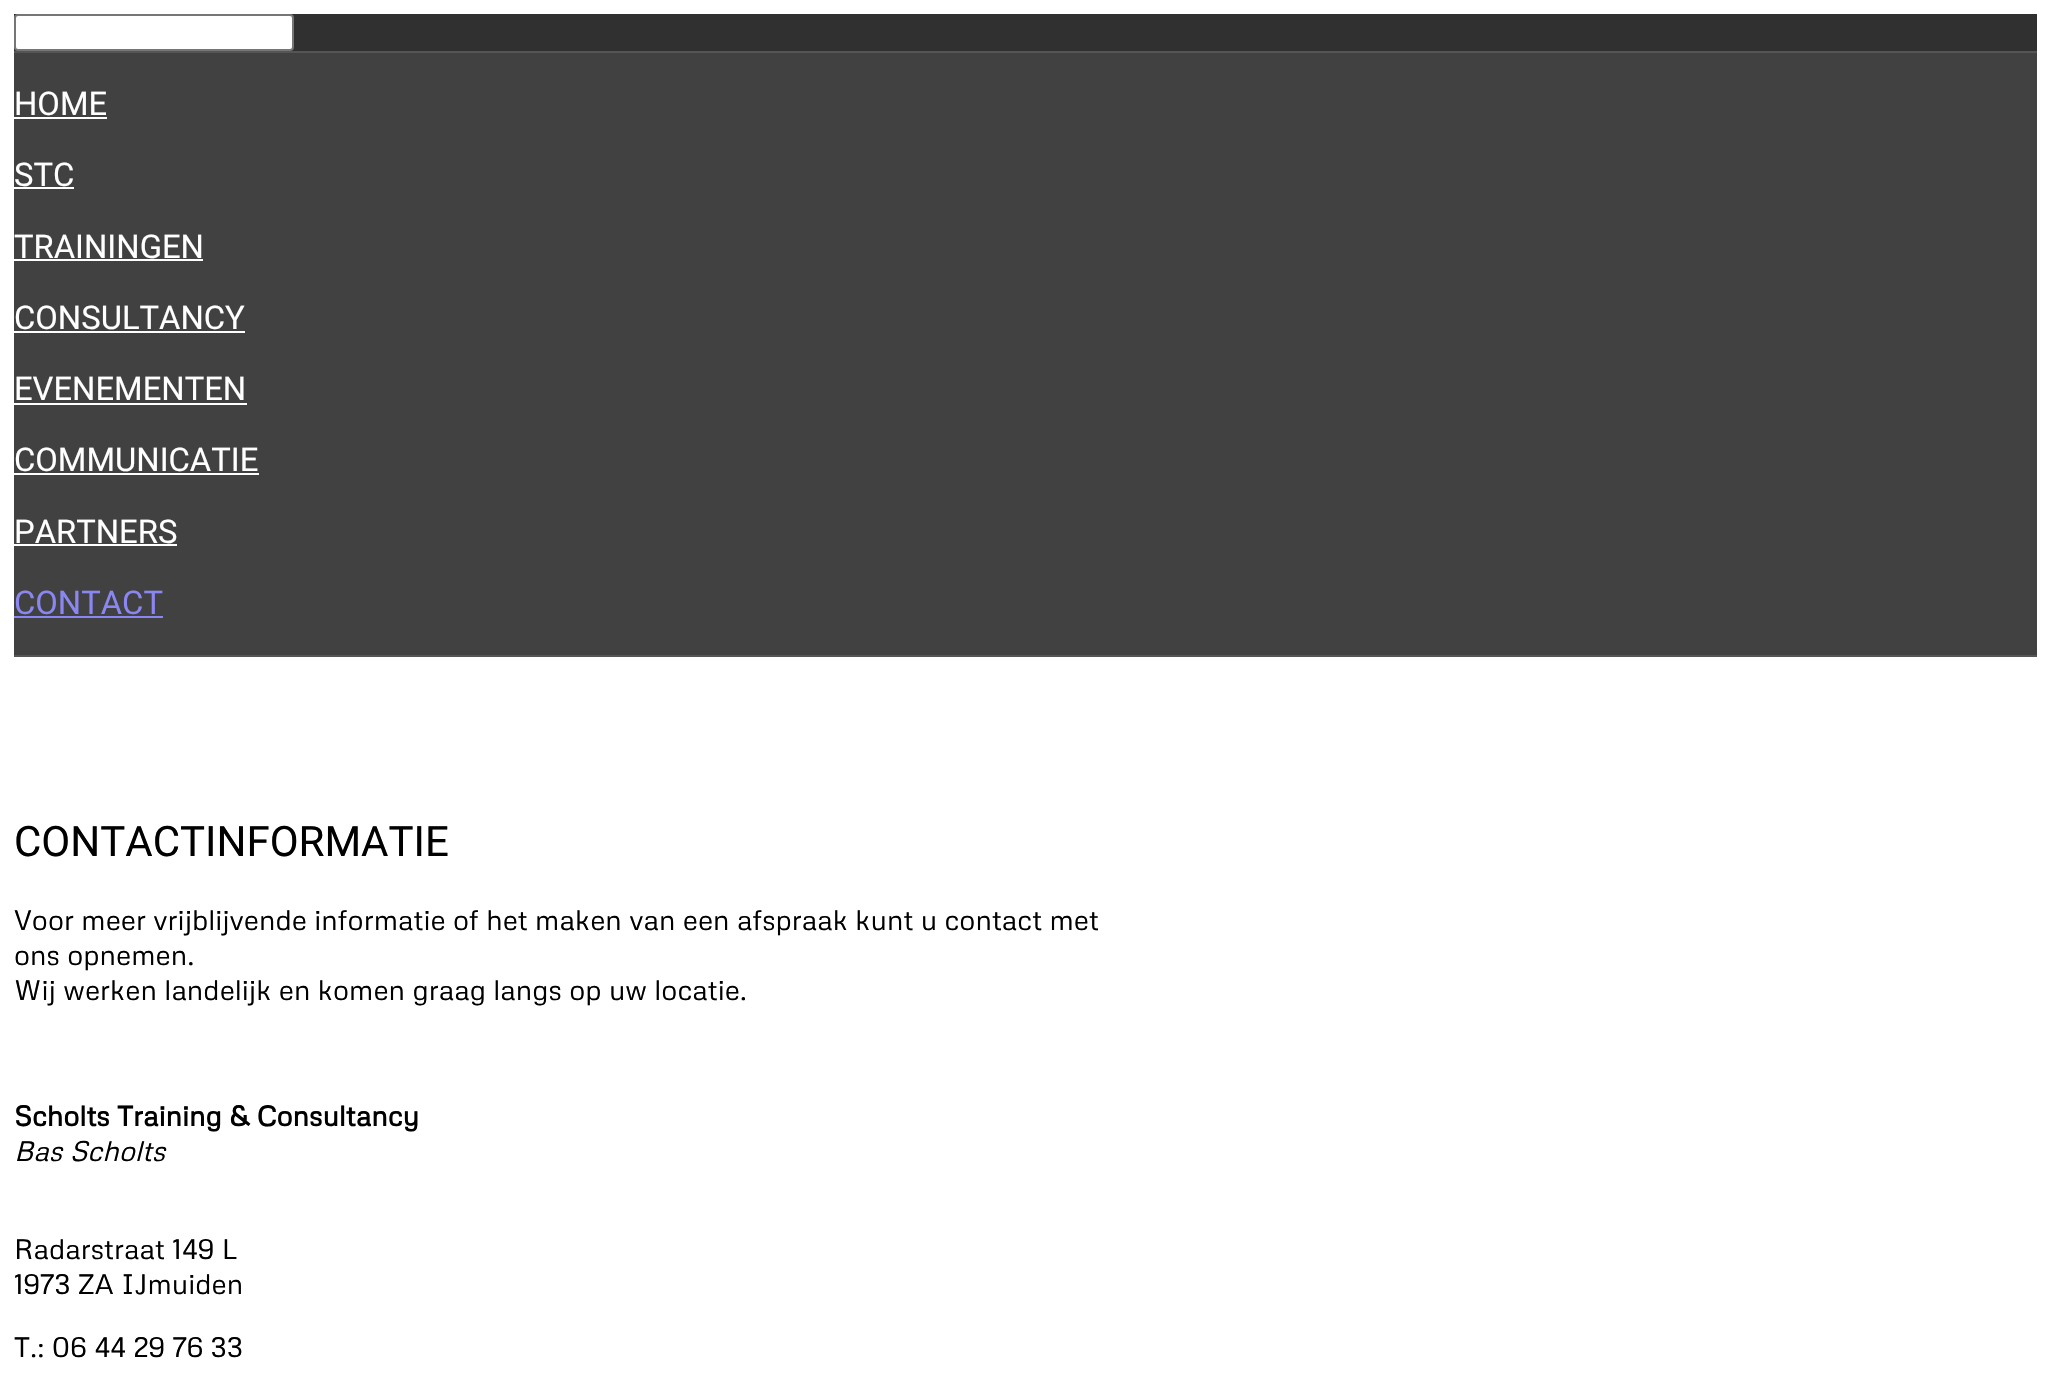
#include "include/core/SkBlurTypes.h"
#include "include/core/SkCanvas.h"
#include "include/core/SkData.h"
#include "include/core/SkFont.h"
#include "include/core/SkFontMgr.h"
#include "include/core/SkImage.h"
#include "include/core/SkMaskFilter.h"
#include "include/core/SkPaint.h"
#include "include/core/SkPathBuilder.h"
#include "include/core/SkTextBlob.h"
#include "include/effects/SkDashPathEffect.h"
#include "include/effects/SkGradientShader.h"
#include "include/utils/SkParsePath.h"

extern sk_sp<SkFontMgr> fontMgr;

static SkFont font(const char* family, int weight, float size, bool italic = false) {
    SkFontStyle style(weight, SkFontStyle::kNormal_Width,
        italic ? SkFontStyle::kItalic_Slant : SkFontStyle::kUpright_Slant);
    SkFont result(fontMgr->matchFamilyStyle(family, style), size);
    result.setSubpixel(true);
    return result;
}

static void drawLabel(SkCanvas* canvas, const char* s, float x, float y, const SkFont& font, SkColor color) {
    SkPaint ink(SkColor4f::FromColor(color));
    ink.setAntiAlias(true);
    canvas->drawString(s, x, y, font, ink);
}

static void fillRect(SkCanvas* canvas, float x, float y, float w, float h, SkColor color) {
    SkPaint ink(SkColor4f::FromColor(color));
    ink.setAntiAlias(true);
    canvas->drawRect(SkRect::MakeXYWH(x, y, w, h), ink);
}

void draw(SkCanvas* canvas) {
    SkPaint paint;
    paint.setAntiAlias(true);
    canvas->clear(0xFFFFFFFF);
    fillRect(canvas, 14, 53, 2023, 602, 0xFF414141);
    fillRect(canvas, 14, 51, 2023, 2, 0xFF555555);
    fillRect(canvas, 14, 14, 2023, 37, 0xFF303030);
    paint.setColor(0xFFFFFFFF);
    canvas->drawRoundRect(SkRect::MakeXYWH(15, 15, 278, 35), 3, 3, paint);
    paint.setStroke(true);
    paint.setStrokeWidth(2);
    paint.setColor(0xFF767676);
    canvas->drawRoundRect(SkRect::MakeXYWH(15, 15, 278, 35), 3, 3, paint);
    fillRect(canvas, 14, 655, 2023, 2, 0xFF555555);
    SkFont font1 = font("Roboto", 400, 32.75f);
    drawLabel(canvas, "HOME", 14, 115, font1, 0xFFFFFFFF);
    fillRect(canvas, 14, 117, 93, 2, 0xFFFFFFFF);
    drawLabel(canvas, "STC", 14, 186, font1, 0xFFFFFFFF);
    fillRect(canvas, 14, 187, 60, 2, 0xFFFFFFFF);
    drawLabel(canvas, "TRAININGEN", 14, 258, font1, 0xFFFFFFFF);
    fillRect(canvas, 14, 259, 189, 2, 0xFFFFFFFF);
    drawLabel(canvas, "CONSULTANCY", 14, 329, font1, 0xFFFFFFFF);
    fillRect(canvas, 14, 331, 231, 2, 0xFFFFFFFF);
    drawLabel(canvas, "EVENEMENTEN", 14, 400, font1, 0xFFFFFFFF);
    fillRect(canvas, 14, 403, 233, 2, 0xFFFFFFFF);
    drawLabel(canvas, "COMMUNICATIE", 14, 471, font1, 0xFFFFFFFF);
    fillRect(canvas, 14, 473, 245, 2, 0xFFFFFFFF);
    drawLabel(canvas, "PARTNERS", 14, 543, font1, 0xFFFFFFFF);
    fillRect(canvas, 14, 544, 163, 2, 0xFFFFFFFF);
    drawLabel(canvas, "CONTACT", 14, 614, font1, 0xFF8A87F2);
    fillRect(canvas, 14, 616, 149, 2, 0xFF8A87F2);
    SkFont font2 = font("Roboto", 400, 42);
    drawLabel(canvas, "CONTACTINFORMATIE", 14, 856, font2, 0xFF000000);
    SkFont font3 = font("Metrophobic", 400, 28);
    drawLabel(canvas, "Voor meer vrijblijvende informatie of het maken van een afspraak kunt u contact met", 14, 930, font3, 0xFF000000);
    drawLabel(canvas, "ons opnemen.", 14, 965, font3, 0xFF000000);
    drawLabel(canvas, "Wij werken landelijk en komen graag langs op uw locatie.", 14, 1000, font3, 0xFF000000);
    SkFont font4 = font("Metrophobic", 700, 28);
    drawLabel(canvas, "Scholts Training & Consultancy", 14, 1126, font4, 0xFF000000);
    SkFont font5 = font("Metrophobic", 400, 28, true);
    drawLabel(canvas, "Bas Scholts", 14, 1161, font5, 0xFF000000);
    drawLabel(canvas, "Radarstraat 149 L", 14, 1259, font3, 0xFF000000);
    drawLabel(canvas, "1973 ZA IJmuiden", 14, 1294, font3, 0xFF000000);
    drawLabel(canvas, "T.: 06 44 29 76 33", 14, 1357, font3, 0xFF000000);
}
